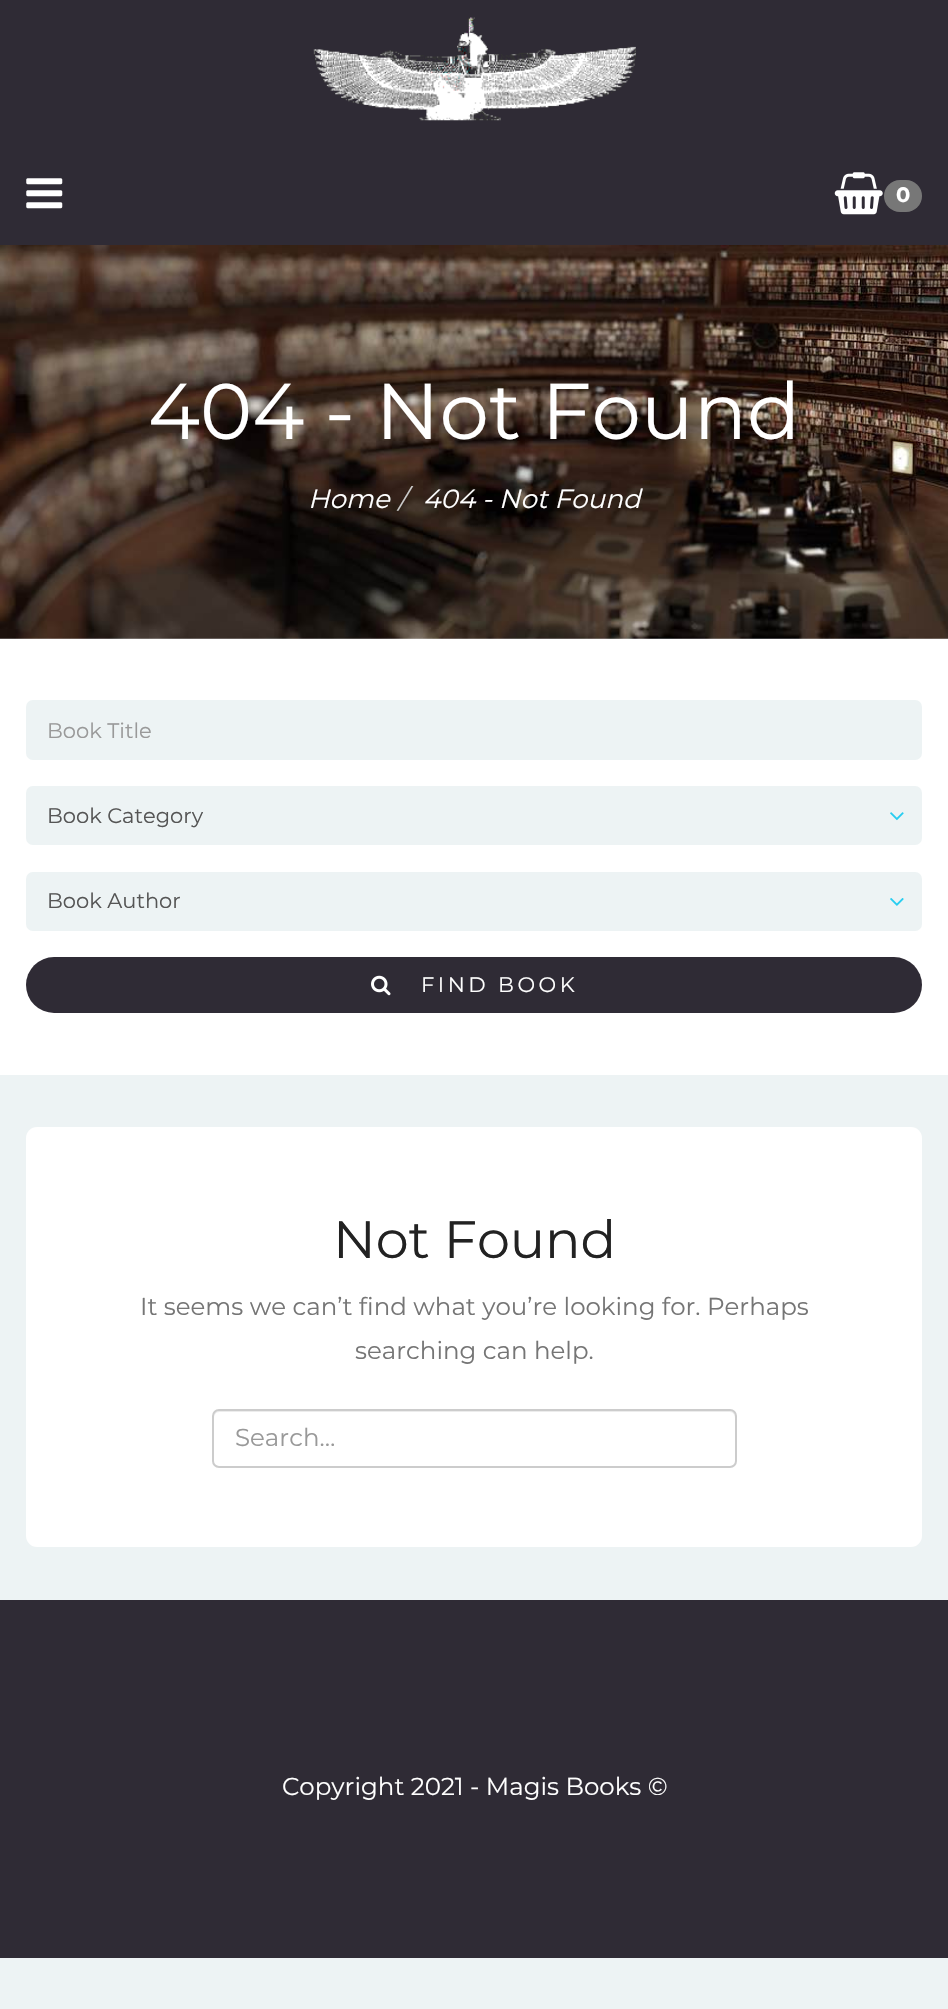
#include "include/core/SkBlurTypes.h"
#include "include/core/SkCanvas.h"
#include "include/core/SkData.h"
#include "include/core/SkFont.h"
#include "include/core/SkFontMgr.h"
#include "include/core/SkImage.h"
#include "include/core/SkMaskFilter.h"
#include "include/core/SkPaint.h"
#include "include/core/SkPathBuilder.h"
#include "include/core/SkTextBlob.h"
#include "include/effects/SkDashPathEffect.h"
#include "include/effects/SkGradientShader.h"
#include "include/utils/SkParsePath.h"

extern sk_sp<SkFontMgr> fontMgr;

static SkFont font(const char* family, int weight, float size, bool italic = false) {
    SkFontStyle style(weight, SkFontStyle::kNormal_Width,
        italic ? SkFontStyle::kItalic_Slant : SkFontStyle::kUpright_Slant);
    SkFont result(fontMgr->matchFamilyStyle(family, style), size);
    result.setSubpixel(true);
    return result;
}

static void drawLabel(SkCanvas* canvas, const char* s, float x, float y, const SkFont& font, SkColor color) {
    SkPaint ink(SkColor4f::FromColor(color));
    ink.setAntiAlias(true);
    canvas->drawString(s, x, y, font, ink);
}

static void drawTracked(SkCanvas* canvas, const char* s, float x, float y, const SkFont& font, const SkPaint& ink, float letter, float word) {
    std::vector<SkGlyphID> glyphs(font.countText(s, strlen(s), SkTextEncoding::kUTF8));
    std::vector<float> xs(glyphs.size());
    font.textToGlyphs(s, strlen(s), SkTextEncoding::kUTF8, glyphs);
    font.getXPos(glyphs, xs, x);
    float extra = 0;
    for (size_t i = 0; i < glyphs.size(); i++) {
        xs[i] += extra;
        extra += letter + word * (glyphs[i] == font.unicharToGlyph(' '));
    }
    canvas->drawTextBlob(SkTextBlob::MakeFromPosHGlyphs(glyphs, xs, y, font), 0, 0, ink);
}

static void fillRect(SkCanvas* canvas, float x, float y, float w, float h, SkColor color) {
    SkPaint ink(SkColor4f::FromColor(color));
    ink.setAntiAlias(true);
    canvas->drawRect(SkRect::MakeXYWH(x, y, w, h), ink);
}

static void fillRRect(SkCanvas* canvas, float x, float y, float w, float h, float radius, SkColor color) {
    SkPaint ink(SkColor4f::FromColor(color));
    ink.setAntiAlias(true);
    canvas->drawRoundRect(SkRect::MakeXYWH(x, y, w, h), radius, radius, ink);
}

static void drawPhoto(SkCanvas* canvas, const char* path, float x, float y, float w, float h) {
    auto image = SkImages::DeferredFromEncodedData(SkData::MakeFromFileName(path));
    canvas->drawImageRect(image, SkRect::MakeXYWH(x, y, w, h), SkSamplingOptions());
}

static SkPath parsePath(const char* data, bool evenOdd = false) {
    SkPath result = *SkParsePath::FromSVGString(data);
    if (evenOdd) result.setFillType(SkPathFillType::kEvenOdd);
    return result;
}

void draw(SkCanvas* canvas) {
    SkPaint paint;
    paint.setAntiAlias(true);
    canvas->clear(0xFFEDF3F4);
    fillRect(canvas, 0, 0, 948, 245, 0xFF2F2B35);
    drawPhoto(canvas, "assets/img1.png", 313, 17, 323, 104);
    drawPhoto(canvas, "assets/img2.png", 26, 178, 37, 31);
    drawPhoto(canvas, "assets/img3.png", 834, 172, 49, 43);
    fillRRect(canvas, 884, 180, 38, 32, 16, 0xFF777777);
    SkFont font1 = font("Montserrat", 700, 21);
    drawLabel(canvas, "0", 896, 202, font1, 0xFFFFFFFF);
    drawPhoto(canvas, "assets/img4.png", 0, 245, 948, 394);
    SkFont font2 = font("Montserrat", 400, 78.75f);
    drawLabel(canvas, "404 - Not Found", 148, 439, font2, 0xFFFFFFFF);
    SkFont font3 = font("Montserrat", 400, 26.25f, true);
    drawLabel(canvas, "Home", 308, 508, font3, 0xFFFFFFFF);
    drawLabel(canvas, "/", 398, 508, font3, 0xFFCCCCCC);
    drawLabel(canvas, "404 - Not Found", 423, 508, font3, 0xFFFFFFFF);
    fillRect(canvas, 0, 639, 948, 436, 0xFFFFFFFF);
    fillRRect(canvas, 26, 700, 896, 60, 7, 0xFFEDF3F4);
    SkFont font4 = font("Montserrat", 400, 21);
    drawLabel(canvas, "Book Title", 47, 738, font4, 0xFF999999);
    fillRRect(canvas, 26, 786, 896, 59, 7, 0xFFEDF3F4);
    drawLabel(canvas, "Book Category", 47, 823, font4, 0xFF555555);
    drawPhoto(canvas, "assets/img5.png", 890, 812, 14, 9);
    fillRRect(canvas, 26, 872, 896, 59, 7, 0xFFEDF3F4);
    drawLabel(canvas, "Book Author", 47, 908, font4, 0xFF555555);
    drawPhoto(canvas, "assets/img6.png", 890, 898, 14, 8);
    fillRRect(canvas, 26, 957, 896, 56, 28, 0xFF2F2B35);
    drawPhoto(canvas, "assets/img7.png", 371, 975, 20, 21);
    paint.setColor(0xFFFFFFFF);
    drawTracked(canvas, "FIND BOOK", 421, 992, font4, paint, 3.5f, 0);
    fillRRect(canvas, 26, 1127, 896, 420, 11, 0xFFFFFFFF);
    SkFont font5 = font("Montserrat", 400, 52.5f);
    drawLabel(canvas, "Not Found", 333, 1258, font5, 0xFF222222);
    SkFont font6 = font("Montserrat", 400, 24.5f);
    drawLabel(canvas, "It seems we can’t find what you’re looking for. Perhaps", 140, 1315, font6, 0xFF757575);
    drawLabel(canvas, "searching can help.", 355, 1359, font6, 0xFF757575);
    paint.setColor(0xFFECECEC);
    canvas->drawPath(parsePath("M219 1412H730C733 1412 735 1415 735 1418V1416C735 1413 733 1411 730 1411H219C216 1411 214 1413 214 1416V1418C214 1415 216 1412 219 1412Z"), paint);
    paint.setStroke(true);
    paint.setStrokeWidth(2);
    paint.setColor(0xFFCCCCCC);
    canvas->drawRoundRect(SkRect::MakeXYWH(213, 1410, 523, 57), 6, 6, paint);
    drawLabel(canvas, "Search…", 235, 1446, font6, 0xFF999999);
    fillRect(canvas, 0, 1600, 948, 358, 0xFF2F2B35);
    drawLabel(canvas, "Copyright 2021 - Magis Books ©", 282, 1795, font6, 0xFFFFFFFF);
}
